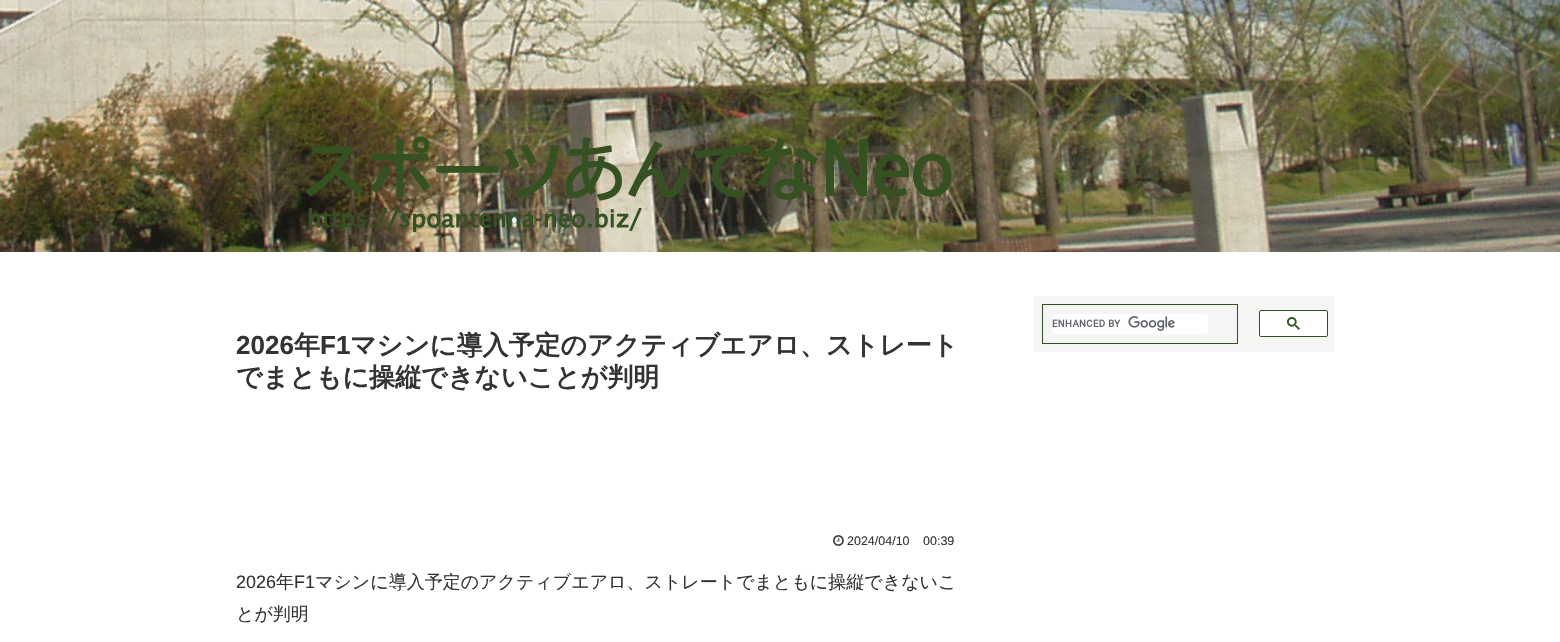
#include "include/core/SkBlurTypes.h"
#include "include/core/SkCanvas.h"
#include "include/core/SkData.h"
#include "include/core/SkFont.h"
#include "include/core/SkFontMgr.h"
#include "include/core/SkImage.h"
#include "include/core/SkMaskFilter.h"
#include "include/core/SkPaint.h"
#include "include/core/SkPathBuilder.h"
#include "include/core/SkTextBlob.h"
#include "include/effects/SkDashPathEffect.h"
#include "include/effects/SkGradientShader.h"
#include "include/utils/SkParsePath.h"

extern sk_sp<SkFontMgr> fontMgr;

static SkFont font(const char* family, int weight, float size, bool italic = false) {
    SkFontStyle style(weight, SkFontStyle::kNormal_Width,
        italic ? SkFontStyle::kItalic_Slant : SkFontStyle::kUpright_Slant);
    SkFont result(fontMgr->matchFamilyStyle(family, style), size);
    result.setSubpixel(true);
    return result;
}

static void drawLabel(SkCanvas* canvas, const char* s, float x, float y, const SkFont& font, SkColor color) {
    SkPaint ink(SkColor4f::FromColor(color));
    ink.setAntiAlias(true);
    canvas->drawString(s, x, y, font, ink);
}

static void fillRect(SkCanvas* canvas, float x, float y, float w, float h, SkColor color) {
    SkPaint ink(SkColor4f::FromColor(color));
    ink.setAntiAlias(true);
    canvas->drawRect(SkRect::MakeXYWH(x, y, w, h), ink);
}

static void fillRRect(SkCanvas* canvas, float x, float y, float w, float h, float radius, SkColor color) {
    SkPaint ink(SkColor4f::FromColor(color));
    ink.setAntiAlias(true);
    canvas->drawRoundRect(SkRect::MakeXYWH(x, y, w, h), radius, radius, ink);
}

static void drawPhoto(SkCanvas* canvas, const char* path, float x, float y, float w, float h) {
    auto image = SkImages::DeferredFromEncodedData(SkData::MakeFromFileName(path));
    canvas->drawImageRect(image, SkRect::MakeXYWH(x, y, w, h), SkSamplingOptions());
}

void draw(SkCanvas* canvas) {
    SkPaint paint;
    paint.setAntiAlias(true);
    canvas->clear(0xFFFFFFFF);
    drawPhoto(canvas, "assets/img1.png", 0, 0, 1560, 252);
    drawPhoto(canvas, "assets/img2.png", 306, 136, 646, 96);
    fillRect(canvas, 1034, 296, 300, 56, 0xFFF5F6F4);
    paint.setStroke(true);
    paint.setStrokeWidth(1);
    paint.setColor(0xFF355121);
    canvas->drawRect(SkRect::MakeXYWH(1042.5f, 304.5f, 195, 39), paint);
    fillRRect(canvas, 1052, 314, 156, 20, 4, 0xFFFFFFFF);
    drawPhoto(canvas, "assets/img3.png", 1052, 316, 123, 15);
    paint.setStroke(false);
    paint.setColor(0xFFFFFFFF);
    canvas->drawRoundRect(SkRect::MakeXYWH(1259.5f, 310.5f, 68, 26), 1.5f, 1.5f, paint);
    paint.setStroke(true);
    paint.setColor(0xFF355121);
    canvas->drawRoundRect(SkRect::MakeXYWH(1259.5f, 310.5f, 68, 26), 1.5f, 1.5f, paint);
    drawPhoto(canvas, "assets/img4.png", 1287, 317, 13, 13);
    SkFont font1 = font("Liberation Sans", 700, 26);
    drawLabel(canvas, "2026", 236, 354, font1, 0xFF333333);
    SkFont font2 = font("WenQuanYi Zen Hei", 700, 26);
    drawLabel(canvas, "年", 294, 354, font2, 0xFF333333);
    drawLabel(canvas, "F1", 320, 354, font1, 0xFF333333);
    drawLabel(canvas, "マシンに導入予定のアクティブエアロ、ストレート", 350, 354, font2, 0xFF333333);
    drawLabel(canvas, "でまともに操縦できないことが判明", 236, 386, font2, 0xFF333333);
    drawPhoto(canvas, "assets/img5.png", 833, 535, 11, 11);
    SkFont font3 = font("Liberation Sans", 400, 12.5f);
    drawLabel(canvas, "2024/04/10", 847, 545, font3, 0xFF333333);
    drawLabel(canvas, "00:39", 923, 545, font3, 0xFF333333);
    SkFont font4 = font("Liberation Sans", 400, 18);
    drawLabel(canvas, "2026", 236, 588, font4, 0xFF333333);
    SkFont font5 = font("WenQuanYi Zen Hei", 500, 18);
    drawLabel(canvas, "年", 276, 588, font5, 0xFF333333);
    drawLabel(canvas, "F1", 294, 588, font4, 0xFF333333);
    drawLabel(canvas, "マシンに導入予定のアクティブエアロ、ストレートでまともに操縦できないこ", 315, 588, font5, 0xFF333333);
    drawLabel(canvas, "とが判明", 236, 620, font5, 0xFF333333);
}
